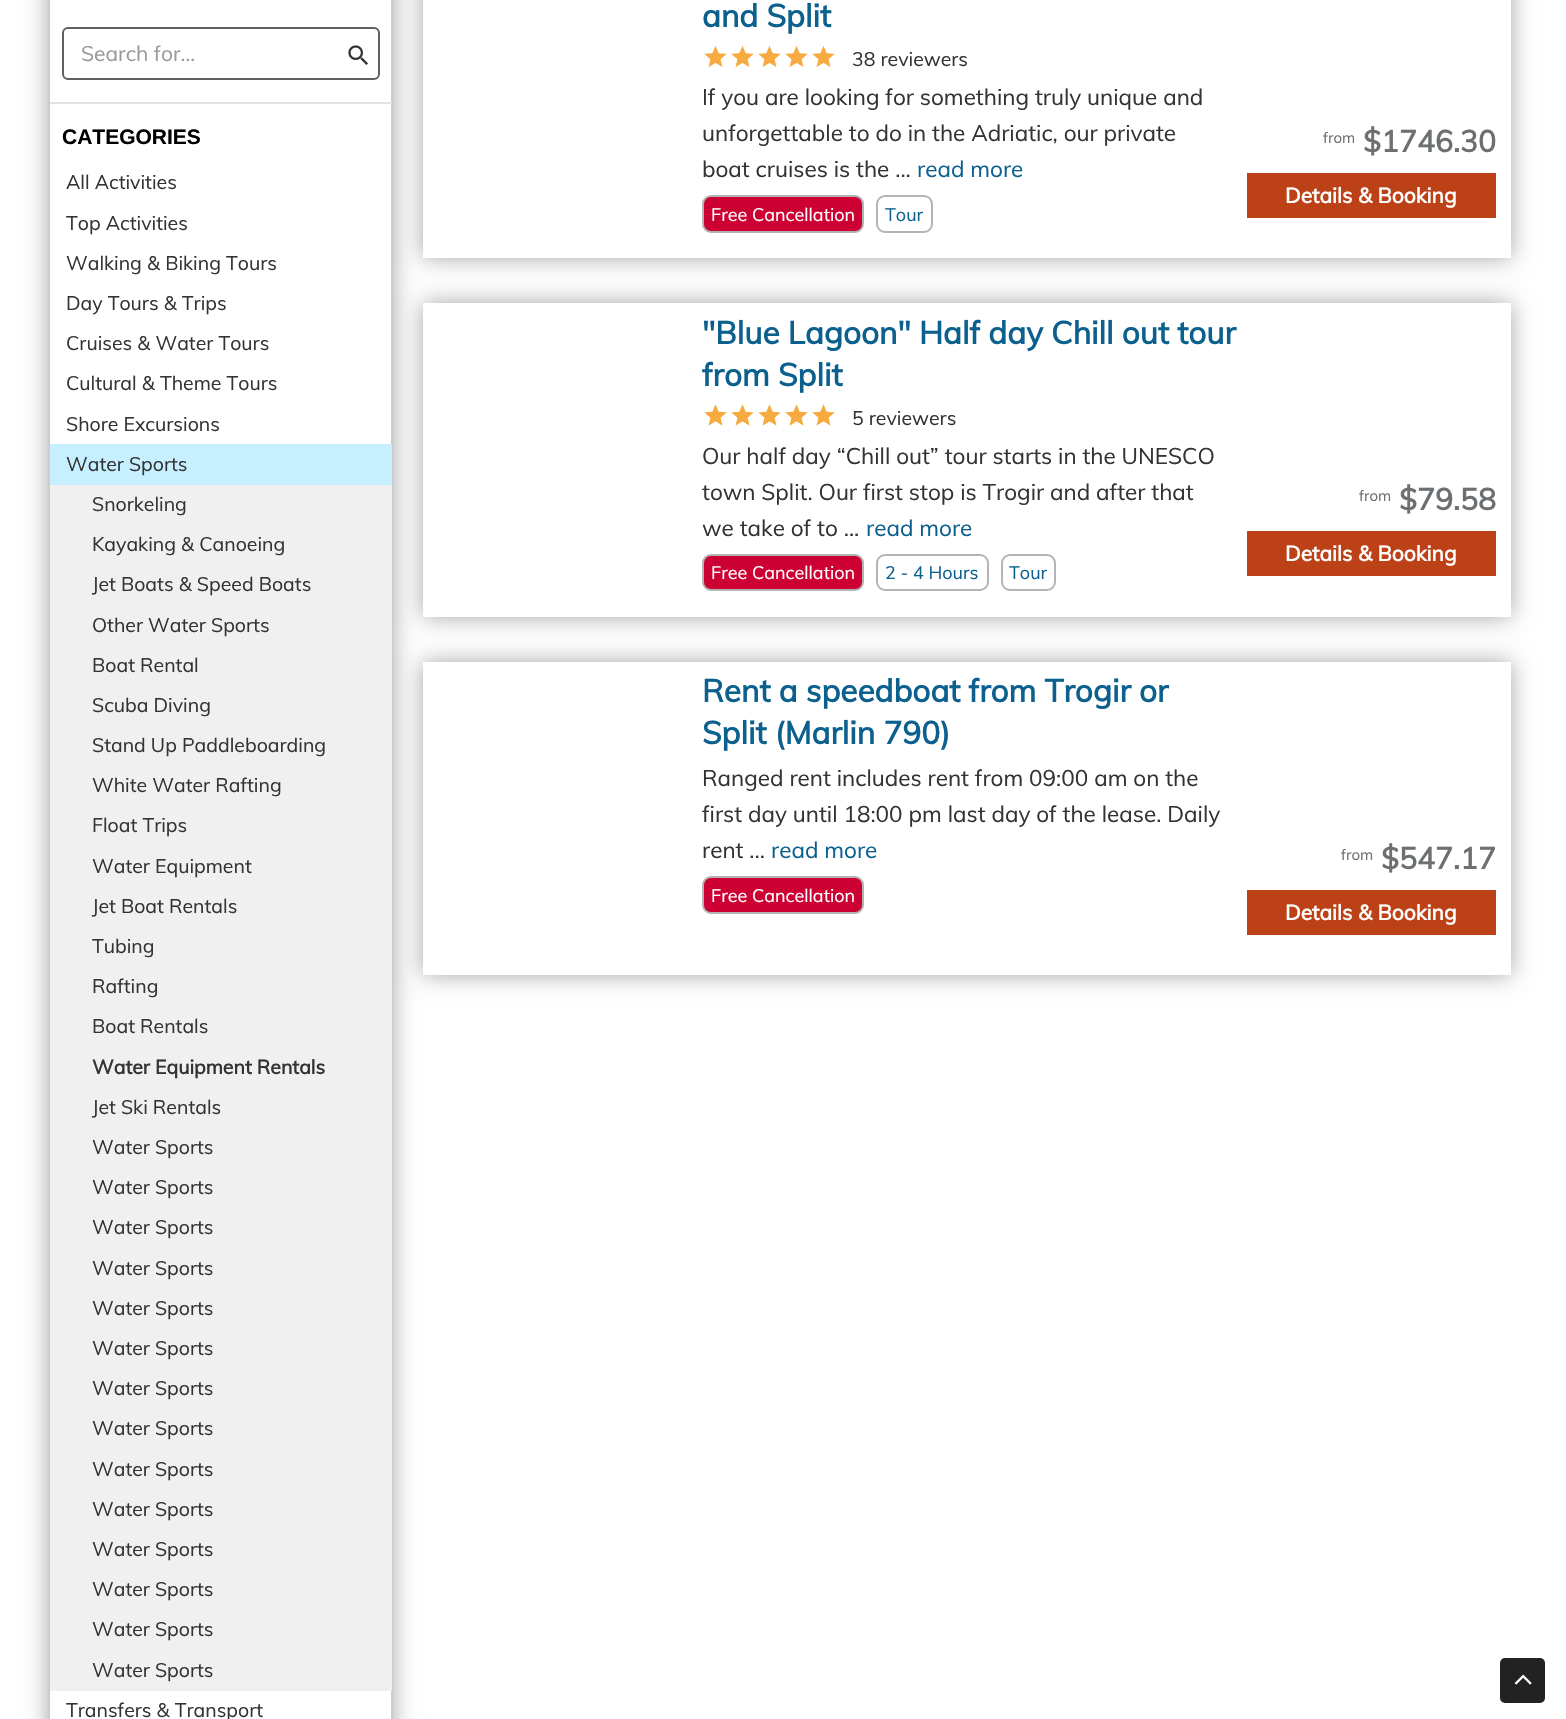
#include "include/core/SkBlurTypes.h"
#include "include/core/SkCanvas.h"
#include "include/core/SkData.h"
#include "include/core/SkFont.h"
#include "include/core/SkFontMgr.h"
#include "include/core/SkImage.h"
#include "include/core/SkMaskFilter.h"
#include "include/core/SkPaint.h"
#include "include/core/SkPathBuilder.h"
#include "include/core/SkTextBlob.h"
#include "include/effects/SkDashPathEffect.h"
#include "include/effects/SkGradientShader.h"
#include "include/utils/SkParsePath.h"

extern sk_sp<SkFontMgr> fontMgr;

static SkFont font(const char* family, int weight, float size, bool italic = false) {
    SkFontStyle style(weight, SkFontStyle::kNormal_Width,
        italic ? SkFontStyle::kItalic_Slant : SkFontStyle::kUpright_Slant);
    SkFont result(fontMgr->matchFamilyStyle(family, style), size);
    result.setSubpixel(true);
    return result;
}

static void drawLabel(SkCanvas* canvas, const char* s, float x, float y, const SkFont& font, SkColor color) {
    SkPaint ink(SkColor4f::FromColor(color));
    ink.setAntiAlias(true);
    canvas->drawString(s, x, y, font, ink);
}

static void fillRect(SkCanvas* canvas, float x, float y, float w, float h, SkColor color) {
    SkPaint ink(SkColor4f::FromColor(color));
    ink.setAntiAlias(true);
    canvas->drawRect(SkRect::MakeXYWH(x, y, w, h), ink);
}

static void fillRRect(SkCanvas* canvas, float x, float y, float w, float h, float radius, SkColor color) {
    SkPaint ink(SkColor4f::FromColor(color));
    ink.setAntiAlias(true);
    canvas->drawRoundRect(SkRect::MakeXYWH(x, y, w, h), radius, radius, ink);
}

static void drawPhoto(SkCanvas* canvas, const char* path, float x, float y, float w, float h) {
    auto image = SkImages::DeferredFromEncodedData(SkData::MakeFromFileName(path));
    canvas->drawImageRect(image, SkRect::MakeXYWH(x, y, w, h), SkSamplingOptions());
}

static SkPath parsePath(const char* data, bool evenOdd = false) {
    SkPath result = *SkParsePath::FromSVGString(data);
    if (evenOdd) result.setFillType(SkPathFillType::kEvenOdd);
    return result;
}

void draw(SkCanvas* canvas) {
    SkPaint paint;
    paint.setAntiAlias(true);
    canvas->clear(0xFFFFFFFF);
    paint.setColor(0x59000000);
    paint.setMaskFilter(SkMaskFilter::MakeBlur(kNormal_SkBlurStyle, 11));
    canvas->drawRect(SkRect::MakeXYWH(423, -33, 1088, 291), paint);
    paint.setMaskFilter(nullptr);
    fillRect(canvas, 423, 0, 1088, 258, 0xFFFFFFFF);
    paint.setMaskFilter(SkMaskFilter::MakeBlur(kNormal_SkBlurStyle, 11));
    canvas->drawRect(SkRect::MakeXYWH(423, 303, 1088, 314), paint);
    paint.setMaskFilter(nullptr);
    fillRect(canvas, 423, 303, 1088, 314, 0xFFFFFFFF);
    paint.setMaskFilter(SkMaskFilter::MakeBlur(kNormal_SkBlurStyle, 11));
    canvas->drawRect(SkRect::MakeXYWH(423, 662, 1088, 313), paint);
    paint.setMaskFilter(nullptr);
    fillRect(canvas, 423, 662, 1088, 313, 0xFFFFFFFF);
    canvas->save();
    canvas->clipPath(parsePath("M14 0H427V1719H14ZM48-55H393V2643H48Z", true), true);
    paint.setMaskFilter(SkMaskFilter::MakeBlur(kNormal_SkBlurStyle, 11));
    canvas->drawRect(SkRect::MakeXYWH(48, -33, 345, 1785), paint);
    paint.setMaskFilter(nullptr);
    canvas->restore();
    paint.setStroke(true);
    paint.setStrokeWidth(2);
    paint.setColor(0xFFCCCCCC);
    canvas->drawRect(SkRect::MakeXYWH(49, -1, 343, 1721), paint);
    paint.setColor(0xFF606060);
    canvas->drawRoundRect(SkRect::MakeXYWH(63, 28, 316, 51), 5, 5, paint);
    SkFont font1 = font("Muli", 400, 21);
    drawLabel(canvas, "Search for...", 81, 61, font1, 0xFF999999);
    drawPhoto(canvas, "assets/img1.png", 348, 45, 20, 20);
    fillRect(canvas, 50, 102, 342, 2, 0xFFE2E2E2);
    SkFont font2 = font("Liberation Sans", 700, 21);
    drawLabel(canvas, "CATEGORIES", 62, 144, font2, 0xFF000000);
    SkFont font3 = font("Muli", 400, 19.5f);
    drawLabel(canvas, "All Activities", 66, 189, font3, 0xFF333333);
    drawLabel(canvas, "Top Activities", 66, 230, font3, 0xFF333333);
    drawLabel(canvas, "Walking & Biking Tours", 66, 270, font3, 0xFF333333);
    drawLabel(canvas, "Day Tours & Trips", 66, 310, font3, 0xFF333333);
    drawLabel(canvas, "Cruises & Water Tours", 66, 350, font3, 0xFF333333);
    drawLabel(canvas, "Cultural & Theme Tours", 66, 390, font3, 0xFF333333);
    drawLabel(canvas, "Shore Excursions", 66, 431, font3, 0xFF333333);
    fillRect(canvas, 50, 485, 342, 1206, 0xFFF0F0F0);
    fillRect(canvas, 50, 444, 342, 41, 0xFFC6F0FF);
    drawLabel(canvas, "Water Sports", 66, 471, font3, 0xFF333333);
    drawLabel(canvas, "Snorkeling", 92, 511, font3, 0xFF333333);
    drawLabel(canvas, "Kayaking & Canoeing", 92, 551, font3, 0xFF333333);
    drawLabel(canvas, "Jet Boats & Speed Boats", 92, 591, font3, 0xFF333333);
    drawLabel(canvas, "Other Water Sports", 92, 632, font3, 0xFF333333);
    drawLabel(canvas, "Boat Rental", 92, 672, font3, 0xFF333333);
    drawLabel(canvas, "Scuba Diving", 92, 712, font3, 0xFF333333);
    drawLabel(canvas, "Stand Up Paddleboarding", 92, 752, font3, 0xFF333333);
    drawLabel(canvas, "White Water Rafting", 92, 792, font3, 0xFF333333);
    drawLabel(canvas, "Float Trips", 92, 832, font3, 0xFF333333);
    drawLabel(canvas, "Water Equipment", 92, 873, font3, 0xFF333333);
    drawLabel(canvas, "Jet Boat Rentals", 92, 913, font3, 0xFF333333);
    drawLabel(canvas, "Tubing", 92, 953, font3, 0xFF333333);
    drawLabel(canvas, "Rafting", 92, 993, font3, 0xFF333333);
    drawLabel(canvas, "Boat Rentals", 92, 1033, font3, 0xFF333333);
    SkFont font4 = font("Muli", 700, 19.5f);
    drawLabel(canvas, "Water Equipment Rentals", 92, 1074, font4, 0xFF333333);
    drawLabel(canvas, "Jet Ski Rentals", 92, 1114, font3, 0xFF333333);
    drawLabel(canvas, "Water Sports", 92, 1154, font3, 0xFF333333);
    drawLabel(canvas, "Water Sports", 92, 1194, font3, 0xFF333333);
    drawLabel(canvas, "Water Sports", 92, 1234, font3, 0xFF333333);
    drawLabel(canvas, "Water Sports", 92, 1275, font3, 0xFF333333);
    drawLabel(canvas, "Water Sports", 92, 1315, font3, 0xFF333333);
    drawLabel(canvas, "Water Sports", 92, 1355, font3, 0xFF333333);
    drawLabel(canvas, "Water Sports", 92, 1395, font3, 0xFF333333);
    drawLabel(canvas, "Water Sports", 92, 1435, font3, 0xFF333333);
    drawLabel(canvas, "Water Sports", 92, 1476, font3, 0xFF333333);
    drawLabel(canvas, "Water Sports", 92, 1516, font3, 0xFF333333);
    drawLabel(canvas, "Water Sports", 92, 1556, font3, 0xFF333333);
    drawLabel(canvas, "Water Sports", 92, 1596, font3, 0xFF333333);
    drawLabel(canvas, "Water Sports", 92, 1636, font3, 0xFF333333);
    drawLabel(canvas, "Water Sports", 92, 1677, font3, 0xFF333333);
    drawLabel(canvas, "Transfers & Transport", 66, 1717, font3, 0xFF333333);
    SkFont font5 = font("Muli", 700, 31.5f);
    drawLabel(canvas, "and Split", 702, 27, font5, 0xFF0C608E);
    drawPhoto(canvas, "assets/img2.png", 704, 45, 23, 22);
    drawPhoto(canvas, "assets/img2.png", 731, 45, 23, 22);
    drawPhoto(canvas, "assets/img2.png", 758, 45, 23, 22);
    drawPhoto(canvas, "assets/img2.png", 785, 45, 23, 22);
    drawPhoto(canvas, "assets/img2.png", 812, 45, 23, 22);
    drawLabel(canvas, "38 reviewers", 852, 66, font3, 0xFF333333);
    SkFont font6 = font("Muli", 400, 22.5f);
    drawLabel(canvas, "If you are looking for something truly unique and", 702, 105, font6, 0xFF333333);
    drawLabel(canvas, "unforgettable to do in the Adriatic, our private", 702, 141, font6, 0xFF333333);
    drawLabel(canvas, "boat cruises is the ...", 702, 177, font6, 0xFF333333);
    drawLabel(canvas, "read more", 917, 177, font6, 0xFF0C608E);
    paint.setStroke(false);
    paint.setColor(0xFFCC0033);
    canvas->drawRoundRect(SkRect::MakeXYWH(703, 196, 160, 36), 8, 8, paint);
    paint.setStroke(true);
    paint.setColor(0xFFB4B4B4);
    canvas->drawRoundRect(SkRect::MakeXYWH(703, 196, 160, 36), 8, 8, paint);
    SkFont font7 = font("Muli", 400, 18);
    drawLabel(canvas, "Free Cancellation", 711, 221, font7, 0xFFFFFFFF);
    canvas->drawRoundRect(SkRect::MakeXYWH(877, 196, 55, 36), 8, 8, paint);
    drawLabel(canvas, "Tour", 885, 221, font7, 0xFF0C608E);
    SkFont font8 = font("Muli", 400, 15);
    drawLabel(canvas, "from", 1323, 143, font8, 0xFF6D7072);
    SkFont font9 = font("Muli", 700, 30);
    drawLabel(canvas, "$1746.30", 1363, 152, font9, 0xFF6D7072);
    fillRect(canvas, 1247, 173, 249, 45, 0xFFBD4116);
    SkFont font10 = font("Muli", 700, 21);
    drawLabel(canvas, "Details & Booking", 1285, 203, font10, 0xFFFFFFFF);
    drawLabel(canvas, "\"Blue Lagoon\" Half day Chill out tour", 702, 344, font5, 0xFF0C608E);
    drawLabel(canvas, "from Split", 702, 386, font5, 0xFF0C608E);
    drawPhoto(canvas, "assets/img3.png", 704, 404, 23, 22);
    drawPhoto(canvas, "assets/img3.png", 731, 404, 23, 22);
    drawPhoto(canvas, "assets/img3.png", 758, 404, 23, 22);
    drawPhoto(canvas, "assets/img3.png", 785, 404, 23, 22);
    drawPhoto(canvas, "assets/img3.png", 812, 404, 23, 22);
    drawLabel(canvas, "5 reviewers", 852, 425, font3, 0xFF333333);
    drawLabel(canvas, "Our half day “Chill out” tour starts in the UNESCO", 702, 464, font6, 0xFF333333);
    drawLabel(canvas, "town Split. Our first stop is Trogir and after that", 702, 500, font6, 0xFF333333);
    drawLabel(canvas, "we take of to ...", 702, 536, font6, 0xFF333333);
    drawLabel(canvas, "read more", 866, 536, font6, 0xFF0C608E);
    paint.setStroke(false);
    paint.setColor(0xFFCC0033);
    canvas->drawRoundRect(SkRect::MakeXYWH(703, 555, 160, 35), 8, 8, paint);
    paint.setStroke(true);
    paint.setColor(0xFFB4B4B4);
    canvas->drawRoundRect(SkRect::MakeXYWH(703, 555, 160, 35), 8, 8, paint);
    drawLabel(canvas, "Free Cancellation", 711, 579, font7, 0xFFFFFFFF);
    canvas->drawRoundRect(SkRect::MakeXYWH(877, 555, 111, 35), 8, 8, paint);
    drawLabel(canvas, "2 - 4 Hours", 885, 579, font7, 0xFF0C608E);
    canvas->drawRoundRect(SkRect::MakeXYWH(1002, 555, 53, 35), 8, 8, paint);
    drawLabel(canvas, "Tour", 1009, 579, font7, 0xFF0C608E);
    drawLabel(canvas, "from", 1359, 501, font8, 0xFF6D7072);
    drawLabel(canvas, "$79.58", 1399, 510, font9, 0xFF6D7072);
    fillRect(canvas, 1247, 531, 249, 45, 0xFFBD4116);
    drawLabel(canvas, "Details & Booking", 1285, 561, font10, 0xFFFFFFFF);
    drawLabel(canvas, "Rent a speedboat from Trogir or", 702, 702, font5, 0xFF0C608E);
    drawLabel(canvas, "Split (Marlin 790)", 702, 744, font5, 0xFF0C608E);
    drawLabel(canvas, "Ranged rent includes rent from 09:00 am on the", 702, 786, font6, 0xFF333333);
    drawLabel(canvas, "first day until 18:00 pm last day of the lease. Daily", 702, 822, font6, 0xFF333333);
    drawLabel(canvas, "rent ...", 702, 858, font6, 0xFF333333);
    drawLabel(canvas, "read more", 771, 858, font6, 0xFF0C608E);
    paint.setStroke(false);
    paint.setColor(0xFFCC0033);
    canvas->drawRoundRect(SkRect::MakeXYWH(703, 877, 160, 36), 8, 8, paint);
    paint.setStroke(true);
    paint.setColor(0xFFB4B4B4);
    canvas->drawRoundRect(SkRect::MakeXYWH(703, 877, 160, 36), 8, 8, paint);
    drawLabel(canvas, "Free Cancellation", 711, 902, font7, 0xFFFFFFFF);
    drawLabel(canvas, "from", 1341, 860, font8, 0xFF6D7072);
    drawLabel(canvas, "$547.17", 1381, 869, font9, 0xFF6D7072);
    fillRect(canvas, 1247, 890, 249, 45, 0xFFBD4116);
    drawLabel(canvas, "Details & Booking", 1285, 920, font10, 0xFFFFFFFF);
    fillRRect(canvas, 1500, 1658, 45, 45, 5, 0xFF222222);
    drawPhoto(canvas, "assets/img4.png", 1514, 1674, 18, 11);
}
